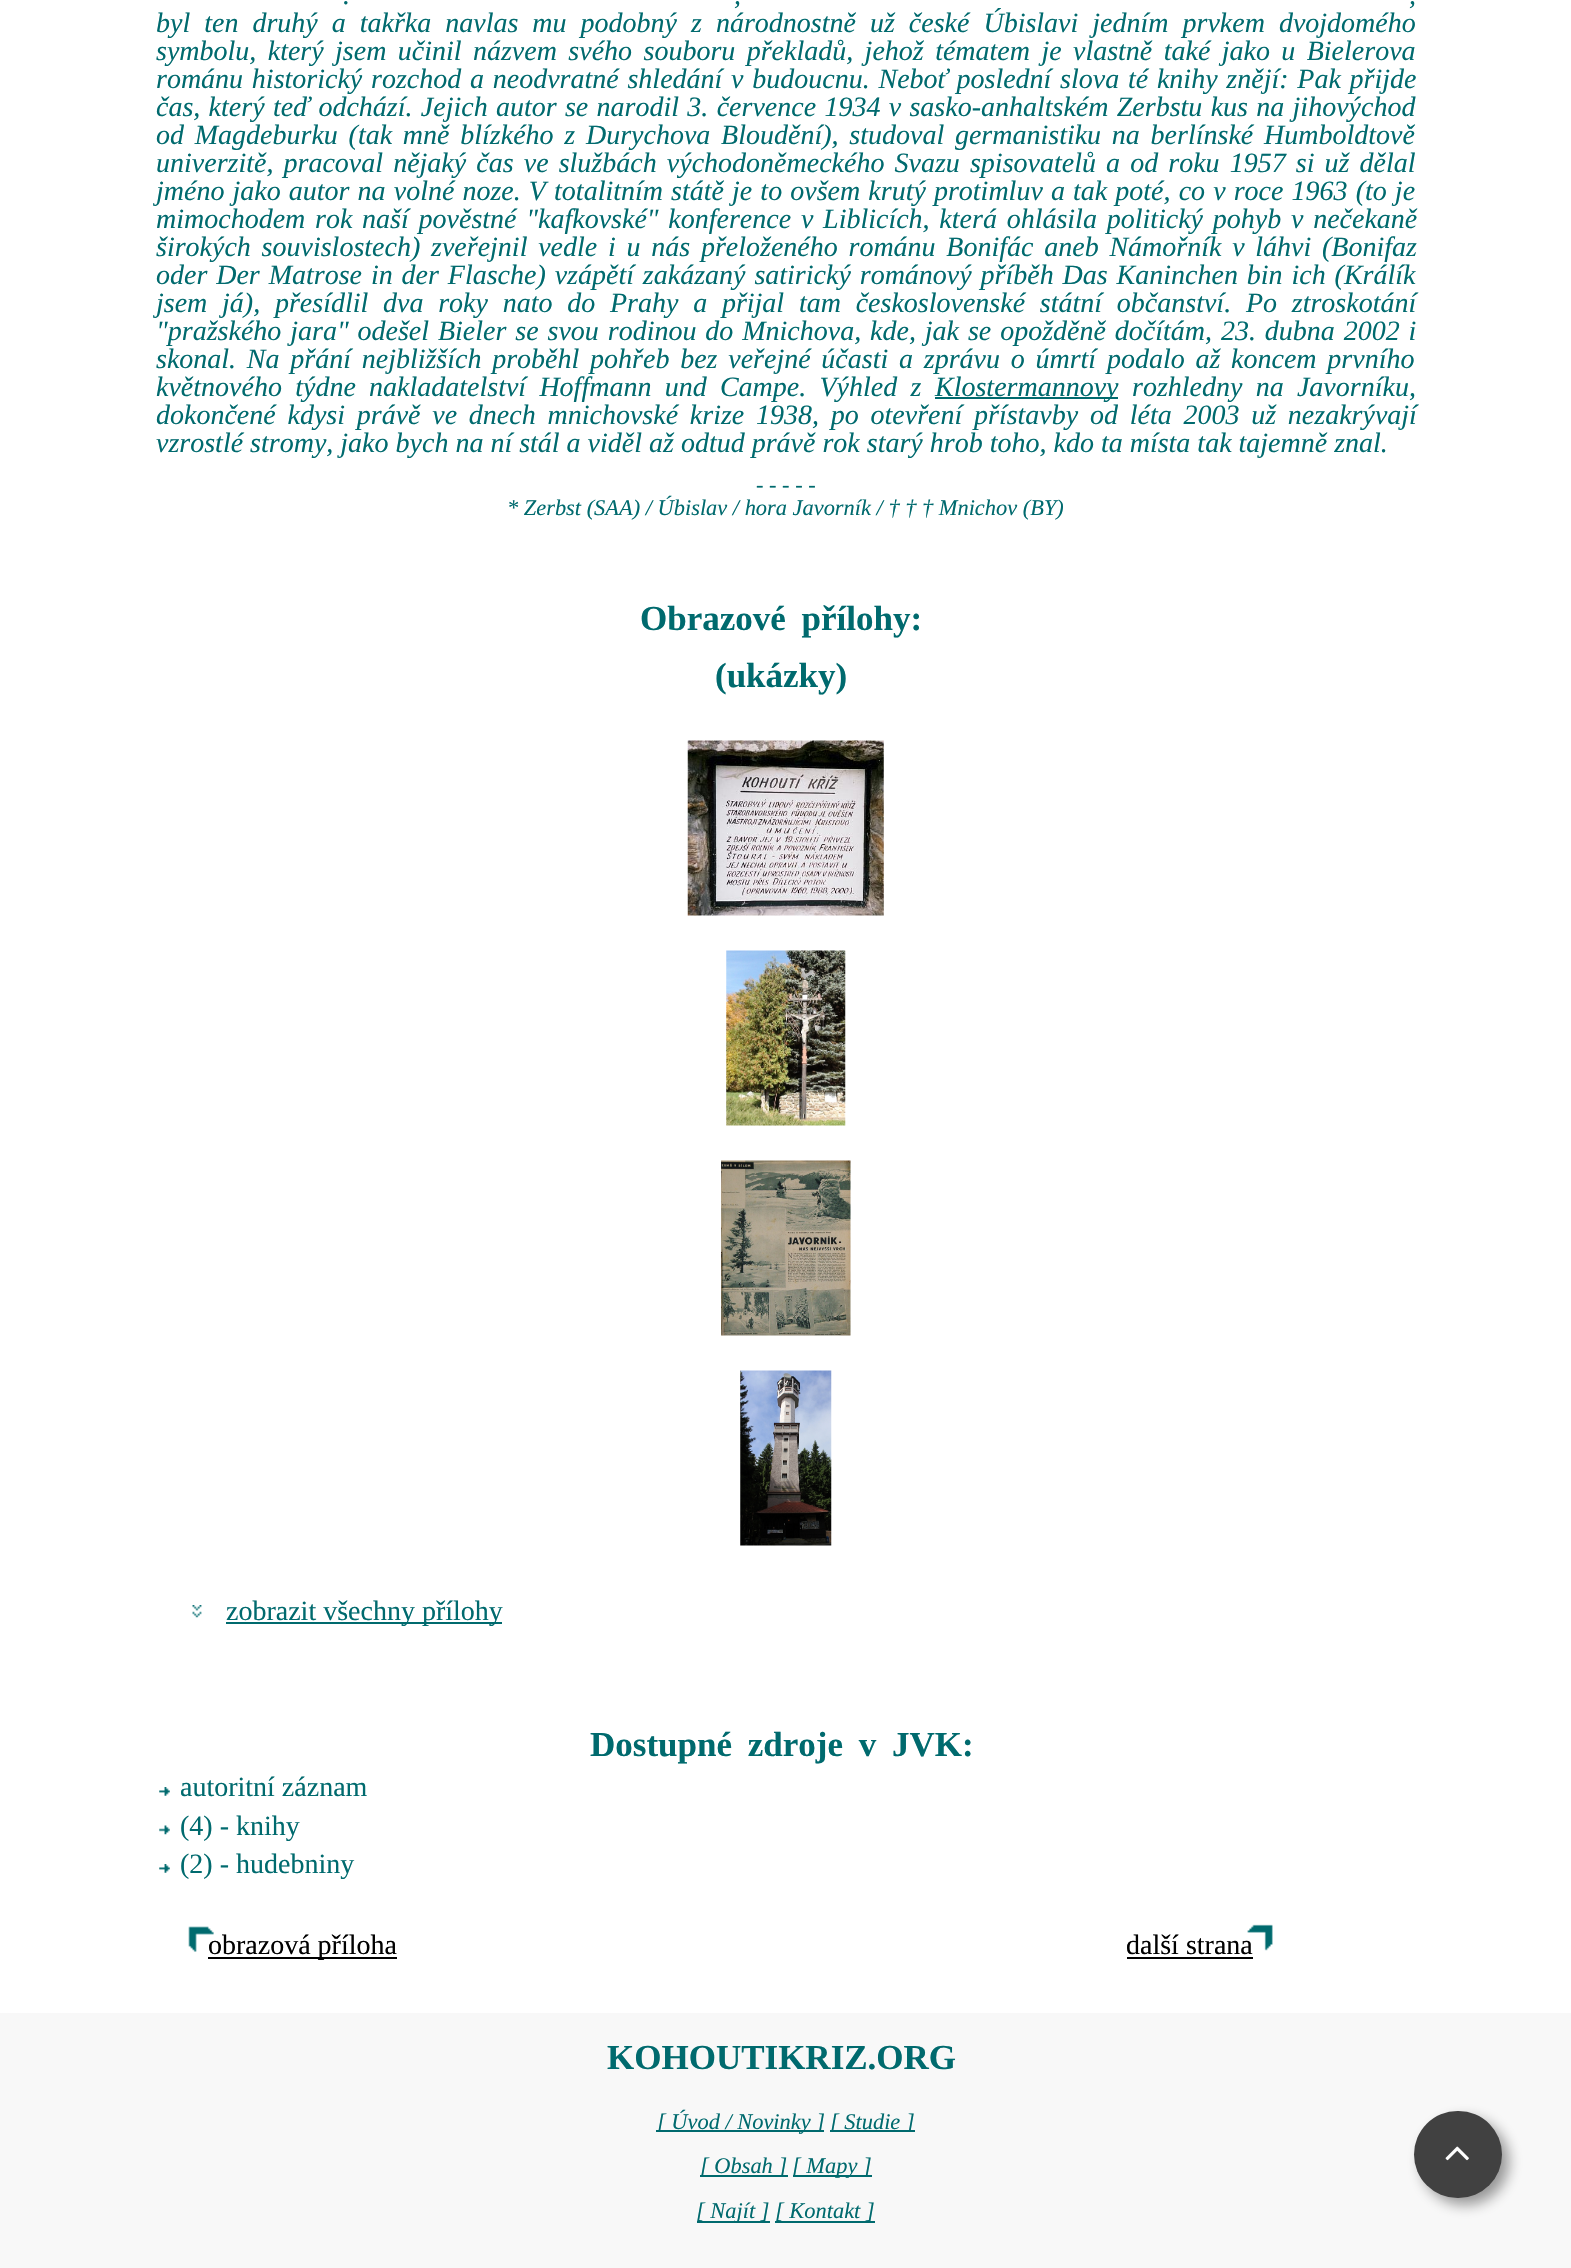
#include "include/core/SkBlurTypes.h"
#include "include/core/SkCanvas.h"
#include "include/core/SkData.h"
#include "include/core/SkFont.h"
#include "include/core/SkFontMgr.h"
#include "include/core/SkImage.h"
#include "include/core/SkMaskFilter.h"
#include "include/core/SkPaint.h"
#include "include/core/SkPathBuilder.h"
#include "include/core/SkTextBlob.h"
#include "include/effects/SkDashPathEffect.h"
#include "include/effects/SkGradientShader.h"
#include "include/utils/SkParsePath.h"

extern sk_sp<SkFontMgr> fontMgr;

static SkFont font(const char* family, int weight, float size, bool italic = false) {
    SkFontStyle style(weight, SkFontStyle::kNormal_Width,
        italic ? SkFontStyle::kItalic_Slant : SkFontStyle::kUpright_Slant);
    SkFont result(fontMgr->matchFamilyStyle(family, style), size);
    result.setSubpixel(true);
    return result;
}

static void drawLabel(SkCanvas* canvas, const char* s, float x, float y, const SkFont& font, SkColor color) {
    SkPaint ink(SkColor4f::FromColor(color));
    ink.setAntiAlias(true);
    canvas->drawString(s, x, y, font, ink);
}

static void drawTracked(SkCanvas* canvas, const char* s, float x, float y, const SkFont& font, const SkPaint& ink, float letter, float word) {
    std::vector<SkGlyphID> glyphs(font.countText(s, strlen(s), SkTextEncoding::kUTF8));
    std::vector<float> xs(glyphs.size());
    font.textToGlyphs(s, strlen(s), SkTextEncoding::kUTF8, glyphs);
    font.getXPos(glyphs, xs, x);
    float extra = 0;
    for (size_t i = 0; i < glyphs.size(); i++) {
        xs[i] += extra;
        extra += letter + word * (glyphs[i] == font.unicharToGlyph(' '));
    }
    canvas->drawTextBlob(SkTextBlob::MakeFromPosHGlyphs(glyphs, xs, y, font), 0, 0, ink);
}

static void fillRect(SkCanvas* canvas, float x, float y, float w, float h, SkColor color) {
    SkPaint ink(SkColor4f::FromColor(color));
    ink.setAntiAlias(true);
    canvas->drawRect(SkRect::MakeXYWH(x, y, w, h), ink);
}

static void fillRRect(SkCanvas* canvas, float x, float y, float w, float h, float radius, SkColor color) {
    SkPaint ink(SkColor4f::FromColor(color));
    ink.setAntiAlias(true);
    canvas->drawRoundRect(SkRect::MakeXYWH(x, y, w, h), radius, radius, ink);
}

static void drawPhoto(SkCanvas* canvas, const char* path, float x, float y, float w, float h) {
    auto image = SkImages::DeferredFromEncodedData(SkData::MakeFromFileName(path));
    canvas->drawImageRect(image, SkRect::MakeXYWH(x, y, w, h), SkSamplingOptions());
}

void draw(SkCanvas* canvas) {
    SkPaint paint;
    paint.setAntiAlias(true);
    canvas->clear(0xFFFFFFFF);
    SkFont font1 = font("Liberation Serif", 400, 28, true);
    drawLabel(canvas, ".", 343, 4, font1, 0xFF006A6E);
    drawLabel(canvas, ",", 734, 4, font1, 0xFF006A6E);
    drawLabel(canvas, ",", 1409, 4, font1, 0xFF006A6E);
    paint.setColor(0xFF006A6E);
    drawTracked(canvas, "byl ten druhý a takřka navlas mu podobný z národnostně už české Úbislavi jedním prvkem dvojdomého", 156, 32, font1, paint, 0, 7);
    drawTracked(canvas, "symbolu, který jsem učinil názvem svého souboru překladů, jehož tématem je vlastně také jako u Bielerova", 156, 60, font1, paint, 0, 4.4f);
    drawTracked(canvas, "románu historický rozchod a neodvratné shledání v budoucnu. Neboť poslední slova té knihy znějí: Pak přijde", 156, 88, font1, paint, 0, 1.75f);
    drawTracked(canvas, "čas, který teď odchází. Jejich autor se narodil 3. července 1934 v sasko-anhaltském Zerbstu kus na jihovýchod", 156, 116, font1, paint, 0, 1.3f);
    drawTracked(canvas, "od Magdeburku (tak mně blízkého z Durychova Bloudění), studoval germanistiku na berlínské Humboldtově", 156, 144, font1, paint, 0, 3.75f);
    drawTracked(canvas, "univerzitě, pracoval nějaký čas ve službách východoněmeckého Svazu spisovatelů a od roku 1957 si už dělal", 156, 172, font1, paint, 0, 3.1f);
    drawTracked(canvas, "jméno jako autor na volné noze. V totalitním státě je to ovšem krutý protimluv a tak poté, co v roce 1963 (to je", 156, 200, font1, paint, 0, 1.1f);
    drawTracked(canvas, "mimochodem rok naší pověstné \"kafkovské\" konference v Liblicích, která ohlásila politický pohyb v nečekaně", 156, 228, font1, paint, 0, 2.75f);
    drawTracked(canvas, "širokých souvislostech) zveřejnil vedle i u nás přeloženého románu Bonifác aneb Námořník v láhvi (Bonifaz", 156, 256, font1, paint, 0, 3.75f);
    drawTracked(canvas, "oder Der Matrose in der Flasche) vzápětí zakázaný satirický románový příběh Das Kaninchen bin ich (Králík", 156, 284, font1, paint, 0, 1.9f);
    drawTracked(canvas, "jsem já), přesídlil dva roky nato do Prahy a přijal tam československé státní občanství. Po ztroskotání", 156, 312, font1, paint, 0, 7.75f);
    drawTracked(canvas, "\"pražského jara\" odešel Bieler se svou rodinou do Mnichova, kde, jak se opožděně dočítám, 23. dubna 2002 i", 156, 340, font1, paint, 0, 1.9f);
    drawTracked(canvas, "skonal. Na přání nejbližších proběhl pohřeb bez veřejné účasti a zprávu o úmrtí podalo až koncem prvního", 156, 368, font1, paint, 0, 3.75f);
    drawTracked(canvas, "květnového týdne nakladatelství Hoffmann und Campe. Výhled z", 156, 396, font1, paint, 0, 6.25f);
    fillRect(canvas, 935, 397, 183, 2, 0xFF006A6E);
    drawLabel(canvas, "Klostermannovy", 935, 396, font1, 0xFF006A6E);
    drawTracked(canvas, "rozhledny na Javorníku,", 1132, 396, font1, paint, 0, 6.25f);
    drawTracked(canvas, "dokončené kdysi právě ve dnech mnichovské krize 1938, po otevření přístavby od léta 2003 už nezakrývají", 156, 424, font1, paint, 0, 4.75f);
    drawLabel(canvas, "vzrostlé stromy, jako bych na ní stál a viděl až odtud právě rok starý hrob toho, kdo ta místa tak tajemně znal.", 156, 452, font1, 0xFF006A6E);
    SkFont font2 = font("Liberation Serif", 400, 22.4f, true);
    drawLabel(canvas, "- - - - -", 756, 492, font2, 0xFF006A6E);
    drawLabel(canvas, "* Zerbst (SAA) / Úbislav / hora Javorník / † † † Mnichov (BY)", 507, 515, font2, 0xFF006A6E);
    SkFont font3 = font("Liberation Serif", 700, 35);
    drawTracked(canvas, "Obrazové přílohy:", 640, 630, font3, paint, 0, 7);
    drawLabel(canvas, "(ukázky)", 715, 687, font3, 0xFF006A6E);
    drawPhoto(canvas, "assets/img1.png", 687, 740, 197, 176);
    drawPhoto(canvas, "assets/img2.png", 726, 950, 120, 176);
    drawPhoto(canvas, "assets/img3.png", 721, 1160, 130, 176);
    drawPhoto(canvas, "assets/img4.png", 740, 1370, 92, 176);
    drawPhoto(canvas, "assets/img5.png", 192, 1605, 10, 13);
    fillRect(canvas, 226, 1622, 276, 2, 0xFF006A6E);
    SkFont font4 = font("Liberation Serif", 400, 28);
    drawLabel(canvas, "zobrazit všechny přílohy", 226, 1620, font4, 0xFF006A6E);
    drawTracked(canvas, "Dostupné zdroje v JVK:", 590, 1756, font3, paint, 0, 7);
    drawPhoto(canvas, "assets/img6.png", 159, 1787, 11, 9);
    drawLabel(canvas, "autoritní záznam", 180, 1796, font4, 0xFF006A6E);
    drawPhoto(canvas, "assets/img7.png", 159, 1825, 11, 10);
    drawLabel(canvas, "(4) - knihy", 180, 1835, font4, 0xFF006A6E);
    drawPhoto(canvas, "assets/img6.png", 159, 1864, 11, 9);
    drawLabel(canvas, "(2) - hudebniny", 180, 1873, font4, 0xFF006A6E);
    drawPhoto(canvas, "assets/img8.png", 188, 1926, 26, 26);
    fillRect(canvas, 208, 1957, 189, 2, 0xFF000000);
    drawLabel(canvas, "obrazová příloha", 208, 1954, font4, 0xFF000000);
    drawPhoto(canvas, "assets/img9.png", 1247, 1924, 26, 27);
    drawLabel(canvas, "další strana", 1126, 1954, font4, 0xFF000000);
    fillRect(canvas, 1127, 1957, 126, 2, 0xFF000000);
    fillRect(canvas, 0, 2013, 1571, 255, 0xFFF8F8F8);
    drawLabel(canvas, "KOHOUTIKRIZ.ORG", 607, 2069, font3, 0xFF006A6E);
    fillRect(canvas, 656, 2130, 168, 2, 0xFF006A6E);
    drawLabel(canvas, "[ Úvod / Novinky ]", 657, 2129, font2, 0xFF006A6E);
    fillRect(canvas, 830, 2130, 85, 2, 0xFF006A6E);
    drawLabel(canvas, "[ Studie ]", 830, 2129, font2, 0xFF006A6E);
    fillRect(canvas, 700, 2175, 88, 2, 0xFF006A6E);
    drawLabel(canvas, "[ Obsah ]", 700, 2173, font2, 0xFF006A6E);
    fillRect(canvas, 793, 2175, 79, 2, 0xFF006A6E);
    drawLabel(canvas, "[ Mapy ]", 792, 2173, font2, 0xFF006A6E);
    fillRect(canvas, 697, 2221, 73, 2, 0xFF006A6E);
    drawLabel(canvas, "[ Najít ] [ Kontakt ]", 696, 2218, font2, 0xFF006A6E);
    fillRect(canvas, 775, 2221, 100, 2, 0xFF006A6E);
    paint.setColor(0x66020202);
    paint.setMaskFilter(SkMaskFilter::MakeBlur(kNormal_SkBlurStyle, 7));
    canvas->drawRoundRect(SkRect::MakeXYWH(1421, 2118, 88, 87), 43.5f, 43.5f, paint);
    paint.setMaskFilter(nullptr);
    fillRRect(canvas, 1414, 2111, 88, 87, 43.5f, 0xFF414141);
    drawPhoto(canvas, "assets/img10.png", 1445, 2146, 24, 15);
}
